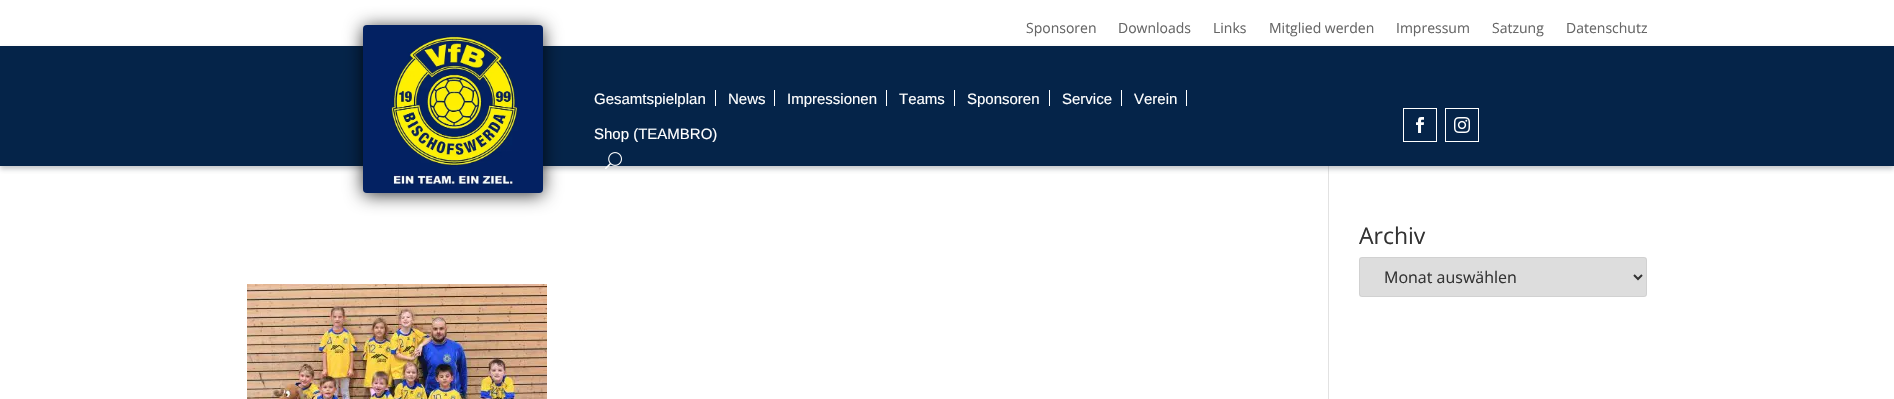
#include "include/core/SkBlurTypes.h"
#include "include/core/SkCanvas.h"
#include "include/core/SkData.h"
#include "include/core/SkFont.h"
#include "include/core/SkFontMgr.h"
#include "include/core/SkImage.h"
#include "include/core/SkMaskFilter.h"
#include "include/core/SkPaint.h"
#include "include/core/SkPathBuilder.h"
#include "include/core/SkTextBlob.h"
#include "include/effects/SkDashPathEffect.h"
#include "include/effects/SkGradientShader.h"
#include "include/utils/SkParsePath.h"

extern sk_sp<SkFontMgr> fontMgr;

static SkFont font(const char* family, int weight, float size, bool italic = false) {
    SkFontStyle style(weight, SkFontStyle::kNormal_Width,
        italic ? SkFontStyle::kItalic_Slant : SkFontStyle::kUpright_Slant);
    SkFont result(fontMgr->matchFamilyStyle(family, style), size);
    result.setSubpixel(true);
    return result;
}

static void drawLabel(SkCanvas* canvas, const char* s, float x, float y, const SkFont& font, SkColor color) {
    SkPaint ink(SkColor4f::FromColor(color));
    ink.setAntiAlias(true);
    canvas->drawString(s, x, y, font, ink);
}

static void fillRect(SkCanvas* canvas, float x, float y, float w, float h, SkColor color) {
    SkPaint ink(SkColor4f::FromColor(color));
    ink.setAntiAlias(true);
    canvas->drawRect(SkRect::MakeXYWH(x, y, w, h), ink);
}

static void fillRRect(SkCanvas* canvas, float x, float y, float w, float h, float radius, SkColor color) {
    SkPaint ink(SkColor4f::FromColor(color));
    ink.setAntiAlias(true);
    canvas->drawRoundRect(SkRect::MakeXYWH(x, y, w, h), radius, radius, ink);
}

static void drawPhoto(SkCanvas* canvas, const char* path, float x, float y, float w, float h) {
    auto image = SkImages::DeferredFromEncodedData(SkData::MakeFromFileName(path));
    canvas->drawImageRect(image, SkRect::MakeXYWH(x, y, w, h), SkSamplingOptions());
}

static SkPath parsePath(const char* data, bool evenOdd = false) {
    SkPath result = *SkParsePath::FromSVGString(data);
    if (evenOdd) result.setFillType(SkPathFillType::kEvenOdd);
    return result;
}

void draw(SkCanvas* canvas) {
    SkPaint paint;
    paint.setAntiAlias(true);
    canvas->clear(0xFFFFFFFF);
    SkFont font1 = font("Open Sans", 400, 14);
    drawLabel(canvas, "Sponsoren", 1026, 33, font1, 0xFF666666);
    drawLabel(canvas, "Downloads", 1118, 33, font1, 0xFF666666);
    drawLabel(canvas, "Links", 1213, 33, font1, 0xFF666666);
    drawLabel(canvas, "Mitglied werden", 1269, 33, font1, 0xFF666666);
    drawLabel(canvas, "Impressum", 1396, 33, font1, 0xFF666666);
    drawLabel(canvas, "Satzung", 1492, 33, font1, 0xFF666666);
    drawLabel(canvas, "Datenschutz", 1566, 33, font1, 0xFF666666);
    fillRect(canvas, 1328, 166, 1, 233, 0xFFE2E2E2);
    paint.setColor(0x4D393F48);
    paint.setMaskFilter(SkMaskFilter::MakeBlur(kNormal_SkBlurStyle, 2.5f));
    canvas->drawRect(SkRect::MakeXYWH(0, 49, 1894, 120), paint);
    paint.setMaskFilter(nullptr);
    fillRect(canvas, 0, 46, 1894, 120, 0xFF052449);
    paint.setColor(0xC7000000);
    paint.setMaskFilter(SkMaskFilter::MakeBlur(kNormal_SkBlurStyle, 9));
    canvas->drawRoundRect(SkRect::MakeXYWH(363, 27, 180, 168), 4, 4, paint);
    paint.setMaskFilter(nullptr);
    drawPhoto(canvas, "assets/img1.png", 363, 25, 180, 168);
    SkFont font2 = font("Liberation Sans", 400, 15);
    drawLabel(canvas, "Gesamtspielplan", 594, 104, font2, 0xFFFFFFFF);
    fillRect(canvas, 715, 90, 1, 16, 0xFFFFFFFF);
    drawLabel(canvas, "News", 728, 104, font2, 0xFFFFFFFF);
    fillRect(canvas, 774, 90, 1, 16, 0xFFFFFFFF);
    drawLabel(canvas, "Impressionen", 787, 104, font2, 0xFFFFFFFF);
    fillRect(canvas, 886, 90, 1, 16, 0xFFFFFFFF);
    drawLabel(canvas, "Teams", 899, 104, font2, 0xFFFFFFFF);
    fillRect(canvas, 954, 90, 1, 16, 0xFFFFFFFF);
    drawLabel(canvas, "Sponsoren", 967, 104, font2, 0xFFFFFFFF);
    fillRect(canvas, 1049, 90, 1, 16, 0xFFFFFFFF);
    drawLabel(canvas, "Service", 1062, 104, font2, 0xFFFFFFFF);
    fillRect(canvas, 1121, 90, 1, 16, 0xFFFFFFFF);
    drawLabel(canvas, "Verein", 1134, 104, font2, 0xFFFFFFFF);
    fillRect(canvas, 1186, 90, 1, 16, 0xFFFFFFFF);
    drawLabel(canvas, "Shop (TEAMBRO)", 594, 139, font2, 0xFFFFFFFF);
    drawPhoto(canvas, "assets/img2.png", 605, 152, 17, 17);
    paint.setStroke(true);
    paint.setStrokeWidth(1);
    paint.setColor(0xFFFFFFFF);
    canvas->drawRect(SkRect::MakeXYWH(1403.5f, 108.5f, 33, 33), paint);
    drawPhoto(canvas, "assets/img3.png", 1416, 117, 8, 16);
    canvas->drawRect(SkRect::MakeXYWH(1445.5f, 108.5f, 33, 33), paint);
    drawPhoto(canvas, "assets/img4.png", 1454, 117, 16, 16);
    SkFont font3 = font("Open Sans", 400, 23);
    drawLabel(canvas, "Archiv", 1359, 244, font3, 0xFF333333);
    fillRRect(canvas, 1359, 257, 288, 40, 3, 0xFFDDDDDD);
    paint.setColor(0x1F7E7E7E);
    canvas->drawRoundRect(SkRect::MakeXYWH(1359.5f, 257.5f, 287, 39), 2.5f, 2.5f, paint);
    paint.setStrokeWidth(2);
    paint.setColor(0xFF333333);
    canvas->drawPath(parsePath("M1634 275L1638 279L1642 275"), paint);
    SkFont font4 = font("Open Sans", 400, 16);
    drawLabel(canvas, "Monat auswählen", 1384, 283, font4, 0xFF333333);
    drawPhoto(canvas, "assets/img5.png", 247, 284, 300, 115);
}
